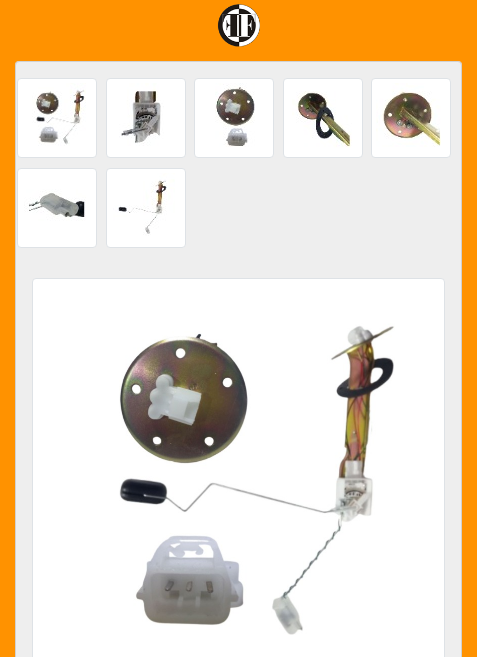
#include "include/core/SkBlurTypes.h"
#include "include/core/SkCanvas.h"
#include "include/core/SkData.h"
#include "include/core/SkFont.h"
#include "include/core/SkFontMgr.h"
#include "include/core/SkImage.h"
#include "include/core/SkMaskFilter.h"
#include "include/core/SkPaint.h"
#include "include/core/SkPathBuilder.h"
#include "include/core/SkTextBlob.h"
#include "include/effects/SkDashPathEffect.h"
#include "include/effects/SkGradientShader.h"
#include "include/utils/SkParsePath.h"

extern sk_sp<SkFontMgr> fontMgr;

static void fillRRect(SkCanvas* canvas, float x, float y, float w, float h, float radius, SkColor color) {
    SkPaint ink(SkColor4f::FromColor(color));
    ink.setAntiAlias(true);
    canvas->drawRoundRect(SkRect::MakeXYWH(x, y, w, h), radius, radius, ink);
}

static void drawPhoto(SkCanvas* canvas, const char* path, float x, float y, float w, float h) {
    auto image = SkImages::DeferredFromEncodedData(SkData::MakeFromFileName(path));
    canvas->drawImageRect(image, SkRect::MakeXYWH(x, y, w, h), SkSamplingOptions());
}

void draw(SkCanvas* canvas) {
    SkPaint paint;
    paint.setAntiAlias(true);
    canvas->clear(0xFFFF9200);
    drawPhoto(canvas, "assets/img1.png", 217, 4, 43, 43);
    fillRRect(canvas, 15, 61, 447, 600, 4, 0xFFEEEEEE);
    paint.setStroke(true);
    paint.setStrokeWidth(1);
    paint.setColor(0x1F000000);
    canvas->drawRoundRect(SkRect::MakeXYWH(15.5f, 61.5f, 446, 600), 3.5f, 3.5f, paint);
    paint.setStroke(false);
    paint.setColor(0xFFFFFFFF);
    canvas->drawRoundRect(SkRect::MakeXYWH(17.5f, 78.5f, 79, 79), 3.5f, 3.5f, paint);
    paint.setStroke(true);
    paint.setColor(0xFFDEE2E6);
    canvas->drawRoundRect(SkRect::MakeXYWH(17.5f, 78.5f, 79, 79), 3.5f, 3.5f, paint);
    drawPhoto(canvas, "assets/img2.png", 32, 83, 54, 63);
    paint.setStroke(false);
    paint.setColor(0xFFFFFFFF);
    canvas->drawRoundRect(SkRect::MakeXYWH(106.5f, 78.5f, 79, 79), 3.5f, 3.5f, paint);
    paint.setStroke(true);
    paint.setColor(0xFFDEE2E6);
    canvas->drawRoundRect(SkRect::MakeXYWH(106.5f, 78.5f, 79, 79), 3.5f, 3.5f, paint);
    drawPhoto(canvas, "assets/img3.png", 119, 83, 45, 63);
    paint.setStroke(false);
    paint.setColor(0xFFFFFFFF);
    canvas->drawRoundRect(SkRect::MakeXYWH(194.5f, 78.5f, 79, 79), 3.5f, 3.5f, paint);
    paint.setStroke(true);
    paint.setColor(0xFFDEE2E6);
    canvas->drawRoundRect(SkRect::MakeXYWH(194.5f, 78.5f, 79, 79), 3.5f, 3.5f, paint);
    drawPhoto(canvas, "assets/img4.png", 215, 83, 40, 64);
    paint.setStroke(false);
    paint.setColor(0xFFFFFFFF);
    canvas->drawRoundRect(SkRect::MakeXYWH(283.5f, 78.5f, 79, 79), 3.5f, 3.5f, paint);
    paint.setStroke(true);
    paint.setColor(0xFFDEE2E6);
    canvas->drawRoundRect(SkRect::MakeXYWH(283.5f, 78.5f, 79, 79), 3.5f, 3.5f, paint);
    drawPhoto(canvas, "assets/img5.png", 292, 91, 60, 57);
    paint.setStroke(false);
    paint.setColor(0xFFFFFFFF);
    canvas->drawRoundRect(SkRect::MakeXYWH(371.5f, 78.5f, 79, 79), 3.5f, 3.5f, paint);
    paint.setStroke(true);
    paint.setColor(0xFFDEE2E6);
    canvas->drawRoundRect(SkRect::MakeXYWH(371.5f, 78.5f, 79, 79), 3.5f, 3.5f, paint);
    drawPhoto(canvas, "assets/img6.png", 376, 83, 65, 64);
    paint.setStroke(false);
    paint.setColor(0xFFFFFFFF);
    canvas->drawRoundRect(SkRect::MakeXYWH(17.5f, 168.5f, 79, 79), 3.5f, 3.5f, paint);
    paint.setStroke(true);
    paint.setColor(0xFFDEE2E6);
    canvas->drawRoundRect(SkRect::MakeXYWH(17.5f, 168.5f, 79, 79), 3.5f, 3.5f, paint);
    drawPhoto(canvas, "assets/img7.png", 24, 189, 62, 32);
    paint.setStroke(false);
    paint.setColor(0xFFFFFFFF);
    canvas->drawRoundRect(SkRect::MakeXYWH(106.5f, 168.5f, 79, 79), 3.5f, 3.5f, paint);
    paint.setStroke(true);
    paint.setColor(0xFFDEE2E6);
    canvas->drawRoundRect(SkRect::MakeXYWH(106.5f, 168.5f, 79, 79), 3.5f, 3.5f, paint);
    drawPhoto(canvas, "assets/img8.png", 113, 173, 62, 63);
    paint.setStroke(false);
    paint.setColor(0xFFFFFFFF);
    canvas->drawRoundRect(SkRect::MakeXYWH(32.5f, 278.5f, 412, 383), 3.5f, 3.5f, paint);
    paint.setStroke(true);
    paint.setColor(0xFFDEE2E6);
    canvas->drawRoundRect(SkRect::MakeXYWH(32.5f, 278.5f, 412, 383), 3.5f, 3.5f, paint);
    drawPhoto(canvas, "assets/img9.png", 119, 323, 276, 312);
}
